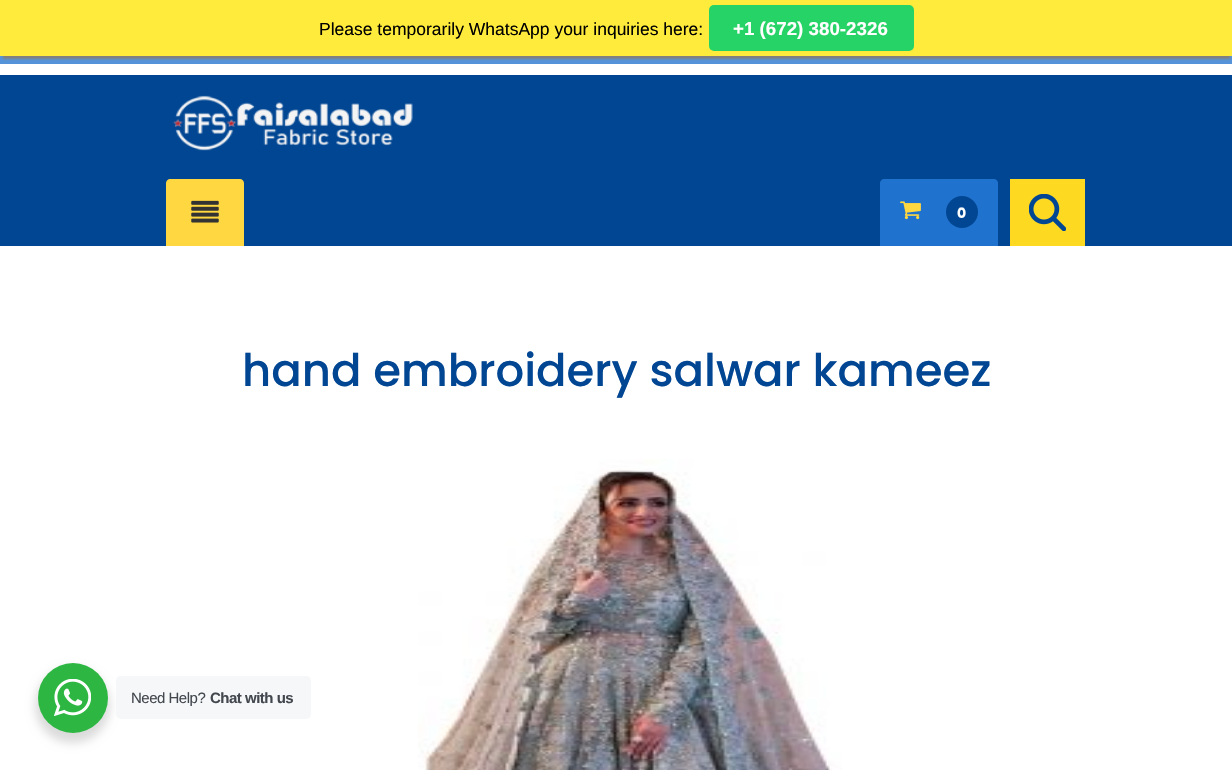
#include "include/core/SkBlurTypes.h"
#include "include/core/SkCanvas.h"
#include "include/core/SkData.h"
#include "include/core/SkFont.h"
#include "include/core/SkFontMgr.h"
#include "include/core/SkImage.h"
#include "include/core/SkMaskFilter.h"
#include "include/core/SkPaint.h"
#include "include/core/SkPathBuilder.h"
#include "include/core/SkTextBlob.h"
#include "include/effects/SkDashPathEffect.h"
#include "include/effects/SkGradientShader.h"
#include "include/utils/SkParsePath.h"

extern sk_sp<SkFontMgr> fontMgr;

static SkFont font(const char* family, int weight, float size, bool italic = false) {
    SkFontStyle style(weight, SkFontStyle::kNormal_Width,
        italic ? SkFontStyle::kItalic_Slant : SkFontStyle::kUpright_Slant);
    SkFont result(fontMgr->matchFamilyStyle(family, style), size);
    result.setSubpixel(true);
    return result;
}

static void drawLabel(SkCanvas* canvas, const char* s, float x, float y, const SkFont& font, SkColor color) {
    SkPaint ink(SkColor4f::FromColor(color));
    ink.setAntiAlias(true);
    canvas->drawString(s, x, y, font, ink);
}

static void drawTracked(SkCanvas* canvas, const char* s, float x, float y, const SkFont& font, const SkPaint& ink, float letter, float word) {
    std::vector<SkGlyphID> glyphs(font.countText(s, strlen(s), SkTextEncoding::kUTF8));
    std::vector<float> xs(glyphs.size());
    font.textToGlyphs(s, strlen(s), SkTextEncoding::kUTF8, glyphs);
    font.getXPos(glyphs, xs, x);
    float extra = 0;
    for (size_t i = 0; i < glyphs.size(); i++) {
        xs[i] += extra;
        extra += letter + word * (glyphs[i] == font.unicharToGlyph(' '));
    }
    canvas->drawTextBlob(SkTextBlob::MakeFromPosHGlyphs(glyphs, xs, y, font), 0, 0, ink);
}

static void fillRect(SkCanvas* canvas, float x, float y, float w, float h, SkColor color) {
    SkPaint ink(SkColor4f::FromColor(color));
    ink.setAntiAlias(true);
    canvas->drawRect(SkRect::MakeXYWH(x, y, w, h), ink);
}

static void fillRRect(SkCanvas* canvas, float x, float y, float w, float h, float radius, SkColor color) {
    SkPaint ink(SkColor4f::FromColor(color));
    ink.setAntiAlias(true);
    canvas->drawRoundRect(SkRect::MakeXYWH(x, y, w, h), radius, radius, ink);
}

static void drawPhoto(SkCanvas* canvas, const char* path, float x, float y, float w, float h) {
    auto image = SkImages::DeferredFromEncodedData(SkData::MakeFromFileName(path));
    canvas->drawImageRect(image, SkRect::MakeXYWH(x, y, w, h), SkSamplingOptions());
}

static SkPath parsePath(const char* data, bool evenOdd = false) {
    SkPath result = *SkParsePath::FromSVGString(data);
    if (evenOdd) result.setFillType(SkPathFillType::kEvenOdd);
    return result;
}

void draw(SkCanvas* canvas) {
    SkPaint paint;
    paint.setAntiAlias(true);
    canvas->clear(0xFFFFFFFF);
    fillRect(canvas, 0, 56, 1232, 8, 0xFF5493D9);
    paint.setColor(0xFF808080);
    paint.setMaskFilter(SkMaskFilter::MakeBlur(kNormal_SkBlurStyle, 1));
    canvas->drawRect(SkRect::MakeXYWH(3, 8, 1227, 51), paint);
    paint.setMaskFilter(nullptr);
    fillRect(canvas, 0, 0, 1232, 56, 0xFFFFEB3B);
    SkFont font1 = font("Liberation Sans", 400, 17.5f);
    drawLabel(canvas, "Please temporarily WhatsApp your inquiries here:", 319, 35, font1, 0xFF000000);
    fillRRect(canvas, 709, 5, 205, 46, 5, 0xFF25D366);
    SkFont font2 = font("Liberation Sans", 700, 18.75f);
    drawLabel(canvas, "+1 (672) 380-2326", 733, 35, font2, 0xFFFFFFFF);
    fillRect(canvas, 0, 75, 1232, 171, 0xFF014693);
    drawPhoto(canvas, "assets/img1.png", 173, 95, 240, 56);
    paint.setColor(0xFFFFD740);
    canvas->drawPath(parsePath("M170 179H240C242 179 244 181 244 183V246H166V183C166 181 168 179 170 179Z"), paint);
    drawPhoto(canvas, "assets/img2.png", 191, 200, 28, 23);
    paint.setColor(0xFF1F72CE);
    canvas->drawPath(parsePath("M884 179H994C996 179 998 181 998 183V246H880V183C880 181 882 179 884 179Z"), paint);
    drawPhoto(canvas, "assets/img3.png", 900, 201, 21, 19);
    paint.setColor(0xFF014693);
    canvas->drawCircle(962, 212, 16, paint);
    SkFont font3 = font("Poppins", 700, 14);
    paint.setColor(0xFFFFFFFF);
    drawTracked(canvas, "0", 957, 218, font3, paint, 1, 0);
    fillRect(canvas, 1010, 179, 75, 67, 0xFFFDD922);
    drawPhoto(canvas, "assets/img4.png", 1029, 194, 37, 37);
    SkFont font4 = font("Poppins", 500, 45);
    drawLabel(canvas, "hand embroidery salwar kameez", 242, 386, font4, 0xFF014693);
    drawPhoto(canvas, "assets/img5.png", 418, 459, 424, 311);
    paint.setColor(0x24000000);
    paint.setMaskFilter(SkMaskFilter::MakeBlur(kNormal_SkBlurStyle, 5));
    canvas->drawRoundRect(SkRect::MakeXYWH(35, 668, 75, 75), 37.5f, 37.5f, paint);
    paint.setMaskFilter(nullptr);
    paint.setColor(0xFF2DB742);
    canvas->drawCircle(73, 698, 35, paint);
    drawPhoto(canvas, "assets/img6.png", 54, 679, 37, 37);
    fillRRect(canvas, 116, 676, 195, 43, 5, 0xFFF5F7F9);
    SkFont font5 = font("Liberation Sans", 400, 15);
    paint.setColor(0xFF43474E);
    drawTracked(canvas, "Need Help?", 131, 703, font5, paint, -0.5f, 0);
    SkFont font6 = font("Liberation Sans", 700, 15);
    drawTracked(canvas, "Chat with us", 210, 703, font6, paint, -0.5f, 0);
}
